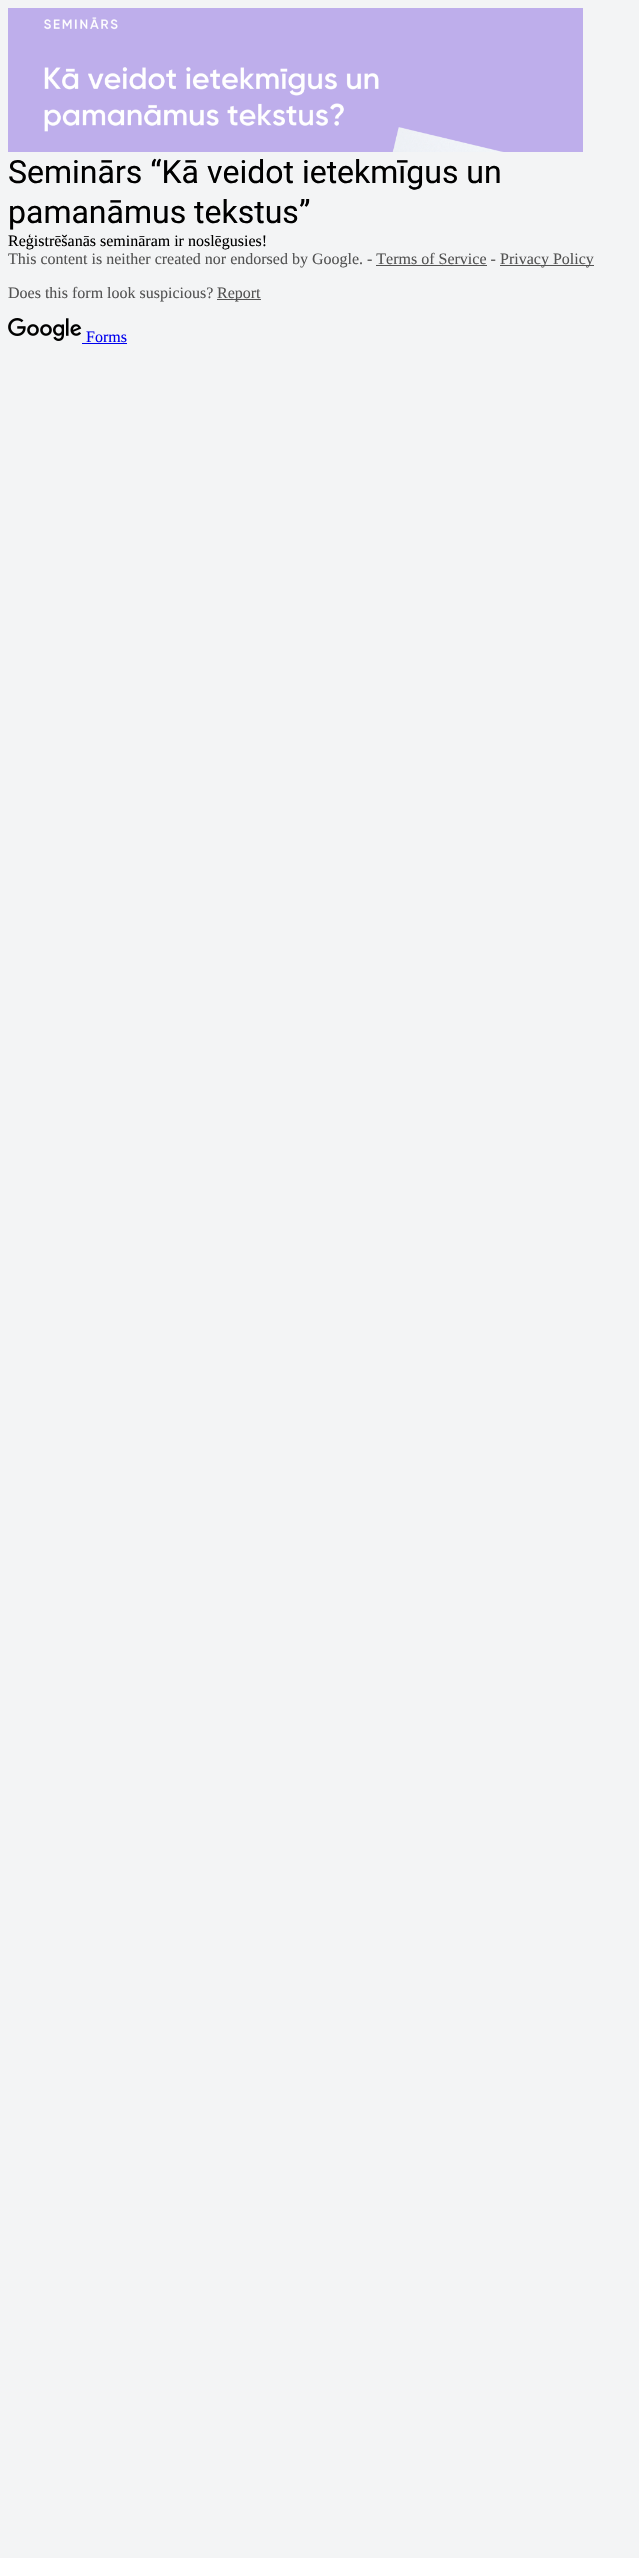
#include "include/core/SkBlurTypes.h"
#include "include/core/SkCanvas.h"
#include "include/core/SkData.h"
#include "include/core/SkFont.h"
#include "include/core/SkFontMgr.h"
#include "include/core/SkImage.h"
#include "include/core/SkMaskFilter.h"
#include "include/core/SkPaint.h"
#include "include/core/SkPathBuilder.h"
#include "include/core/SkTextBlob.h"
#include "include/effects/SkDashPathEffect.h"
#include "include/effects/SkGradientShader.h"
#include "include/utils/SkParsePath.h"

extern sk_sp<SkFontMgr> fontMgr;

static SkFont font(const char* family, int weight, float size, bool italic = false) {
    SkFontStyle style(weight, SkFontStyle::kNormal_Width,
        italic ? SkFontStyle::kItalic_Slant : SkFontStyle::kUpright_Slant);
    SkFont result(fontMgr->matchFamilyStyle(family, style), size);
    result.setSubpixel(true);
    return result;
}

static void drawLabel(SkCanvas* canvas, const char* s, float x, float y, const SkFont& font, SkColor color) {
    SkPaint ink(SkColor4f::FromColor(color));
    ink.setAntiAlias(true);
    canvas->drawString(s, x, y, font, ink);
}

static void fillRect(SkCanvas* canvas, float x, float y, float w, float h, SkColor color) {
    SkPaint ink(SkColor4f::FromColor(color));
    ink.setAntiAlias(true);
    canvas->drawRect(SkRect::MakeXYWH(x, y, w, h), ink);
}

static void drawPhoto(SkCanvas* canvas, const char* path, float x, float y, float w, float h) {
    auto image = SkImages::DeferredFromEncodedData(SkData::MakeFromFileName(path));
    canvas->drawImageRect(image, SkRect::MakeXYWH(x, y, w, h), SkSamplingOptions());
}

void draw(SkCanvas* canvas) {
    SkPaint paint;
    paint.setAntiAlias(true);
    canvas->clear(0xFFF3F4F5);
    drawPhoto(canvas, "assets/img1.png", 8, 8, 575, 144);
    SkFont font1 = font("Roboto", 400, 32);
    drawLabel(canvas, "Seminārs “Kā veidot ietekmīgus un", 8, 183, font1, 0xFF000000);
    drawLabel(canvas, "pamanāmus tekstus”", 8, 223, font1, 0xFF000000);
    SkFont font2 = font("Liberation Serif", 400, 16);
    drawLabel(canvas, "Reģistrēšanās semināram ir noslēgusies!", 8, 246, font2, 0xFF000000);
    drawLabel(canvas, "This content is neither created nor endorsed by Google. - Terms of Service -", 8, 264, font2, 0xFF535353);
    fillRect(canvas, 500, 265, 94, 1, 0xFF535353);
    drawLabel(canvas, "Privacy Policy", 500, 264, font2, 0xFF535353);
    fillRect(canvas, 376, 265, 111, 1, 0xFF535353);
    drawLabel(canvas, "Does this form look suspicious?", 8, 298, font2, 0xFF535353);
    fillRect(canvas, 217, 299, 44, 1, 0xFF535353);
    drawLabel(canvas, "Report", 217, 298, font2, 0xFF535353);
    drawPhoto(canvas, "assets/img2.png", 8, 318, 74, 23);
    drawLabel(canvas, "Forms", 86, 342, font2, 0xFF0000EE);
    fillRect(canvas, 82, 343, 45, 1, 0xFF0000EE);
}
